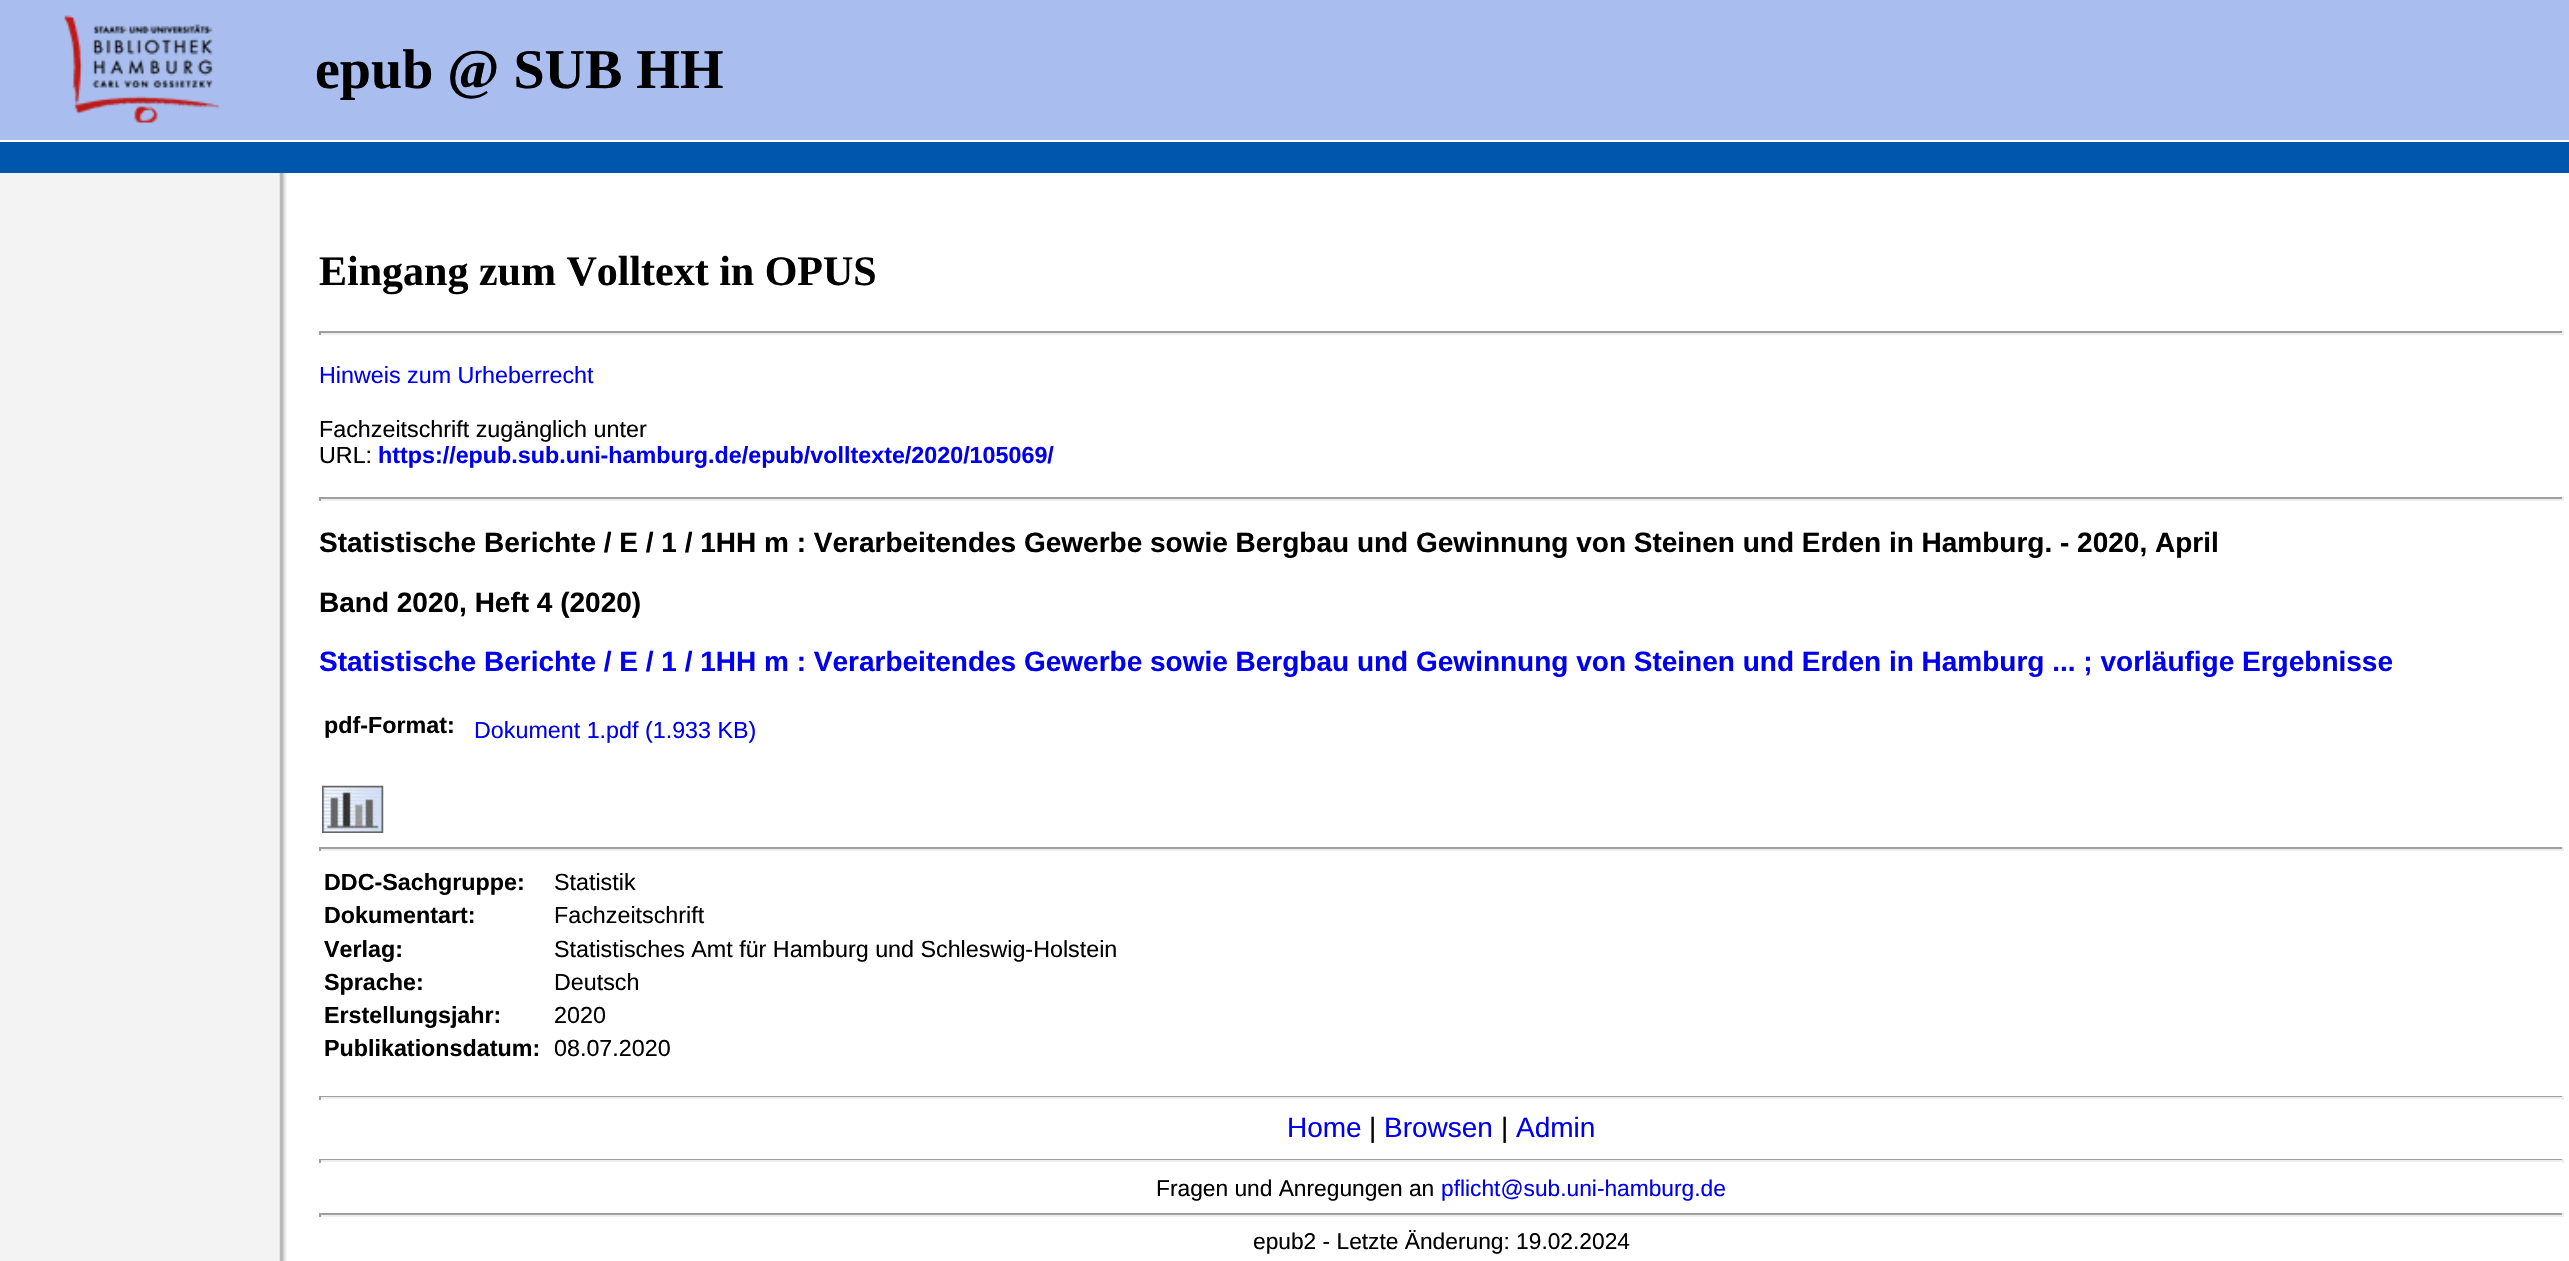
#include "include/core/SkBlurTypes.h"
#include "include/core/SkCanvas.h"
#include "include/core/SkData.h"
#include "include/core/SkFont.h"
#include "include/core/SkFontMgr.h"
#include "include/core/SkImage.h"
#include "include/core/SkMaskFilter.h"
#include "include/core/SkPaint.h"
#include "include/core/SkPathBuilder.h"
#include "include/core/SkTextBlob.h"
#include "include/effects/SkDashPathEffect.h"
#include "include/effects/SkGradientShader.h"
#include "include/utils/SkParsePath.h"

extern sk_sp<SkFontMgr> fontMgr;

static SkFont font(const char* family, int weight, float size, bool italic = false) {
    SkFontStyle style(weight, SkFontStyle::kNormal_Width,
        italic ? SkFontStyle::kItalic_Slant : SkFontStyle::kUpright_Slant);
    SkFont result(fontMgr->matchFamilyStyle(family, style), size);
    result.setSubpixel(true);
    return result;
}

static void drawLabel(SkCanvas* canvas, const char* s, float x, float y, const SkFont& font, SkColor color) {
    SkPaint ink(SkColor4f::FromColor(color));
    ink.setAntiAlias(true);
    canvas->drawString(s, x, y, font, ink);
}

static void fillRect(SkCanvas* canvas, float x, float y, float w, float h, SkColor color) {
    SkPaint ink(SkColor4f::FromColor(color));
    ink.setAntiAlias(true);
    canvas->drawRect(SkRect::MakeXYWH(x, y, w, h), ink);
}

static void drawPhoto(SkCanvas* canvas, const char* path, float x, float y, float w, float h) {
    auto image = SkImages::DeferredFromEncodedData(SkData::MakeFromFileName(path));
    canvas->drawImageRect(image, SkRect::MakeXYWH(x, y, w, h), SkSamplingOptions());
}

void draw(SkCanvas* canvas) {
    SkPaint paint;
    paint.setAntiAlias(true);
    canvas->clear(0xFFFFFFFF);
    drawPhoto(canvas, "assets/img1.png", 0, 173, 287, 1088);
    fillRect(canvas, 0, 0, 2569, 140, 0xFFA9BEEE);
    drawPhoto(canvas, "assets/img2.png", 64, 15, 156, 108);
    SkFont font1 = font("Liberation Serif", 700, 56);
    drawLabel(canvas, "epub @ SUB HH", 315, 88, font1, 0xFF000000);
    fillRect(canvas, 0, 142, 2569, 31, 0xFF0056AC);
    SkFont font2 = font("Liberation Serif", 700, 42);
    drawLabel(canvas, "Eingang zum Volltext in OPUS", 319, 285, font2, 0xFF000000);
    fillRect(canvas, 319, 331, 2245, 2, 0xFF9F9F9F);
    fillRect(canvas, 2562, 331, 2, 4, 0xFFEEEEEE);
    fillRect(canvas, 319, 333, 2245, 2, 0xFFEEEEEE);
    fillRect(canvas, 319, 331, 2, 4, 0xFF9F9F9F);
    SkFont font3 = font("Liberation Sans", 400, 23.3f);
    drawLabel(canvas, "Hinweis zum Urheberrecht", 319, 383, font3, 0xFF0000EE);
    drawLabel(canvas, "Fachzeitschrift zugänglich unter", 319, 437, font3, 0xFF000000);
    drawLabel(canvas, "URL:", 319, 463, font3, 0xFF000000);
    SkFont font4 = font("Liberation Sans", 700, 23.3f);
    drawLabel(canvas, "https://epub.sub.uni-hamburg.de/epub/volltexte/2020/105069/", 378, 463, font4, 0xFF0000EE);
    fillRect(canvas, 319, 497, 2245, 2, 0xFF9F9F9F);
    fillRect(canvas, 2562, 497, 2, 4, 0xFFEEEEEE);
    fillRect(canvas, 319, 499, 2245, 2, 0xFFEEEEEE);
    fillRect(canvas, 319, 497, 2, 4, 0xFF9F9F9F);
    SkFont font5 = font("Liberation Sans", 700, 28);
    drawLabel(canvas, "Statistische Berichte / E / 1 / 1HH m : Verarbeitendes Gewerbe sowie Bergbau und Gewinnung von Steinen und Erden in Hamburg. - 2020, April", 319, 552, font5, 0xFF000000);
    drawLabel(canvas, "Band 2020, Heft 4 (2020)", 319, 612, font5, 0xFF000000);
    drawLabel(canvas, "Statistische Berichte / E / 1 / 1HH m : Verarbeitendes Gewerbe sowie Bergbau und Gewinnung von Steinen und Erden in Hamburg ... ; vorläufige Ergebnisse", 319, 671, font5, 0xFF0000EE);
    drawLabel(canvas, "pdf-Format:", 324, 733, font4, 0xFF000000);
    drawLabel(canvas, "Dokument 1.pdf (1.933 KB)", 474, 738, font3, 0xFF0000EE);
    drawPhoto(canvas, "assets/img3.png", 322, 785, 62, 48);
    fillRect(canvas, 319, 847, 2245, 2, 0xFF9F9F9F);
    fillRect(canvas, 2562, 847, 2, 4, 0xFFEEEEEE);
    fillRect(canvas, 319, 849, 2245, 2, 0xFFEEEEEE);
    fillRect(canvas, 319, 847, 2, 4, 0xFF9F9F9F);
    drawLabel(canvas, "DDC-Sachgruppe:", 324, 890, font4, 0xFF000000);
    drawLabel(canvas, "Statistik", 554, 890, font3, 0xFF000000);
    drawLabel(canvas, "Dokumentart:", 324, 923, font4, 0xFF000000);
    drawLabel(canvas, "Fachzeitschrift", 554, 923, font3, 0xFF000000);
    drawLabel(canvas, "Verlag:", 324, 957, font4, 0xFF000000);
    drawLabel(canvas, "Statistisches Amt für Hamburg und Schleswig-Holstein", 554, 957, font3, 0xFF000000);
    drawLabel(canvas, "Sprache:", 324, 990, font4, 0xFF000000);
    drawLabel(canvas, "Deutsch", 554, 990, font3, 0xFF000000);
    drawLabel(canvas, "Erstellungsjahr:", 324, 1023, font4, 0xFF000000);
    drawLabel(canvas, "2020", 554, 1023, font3, 0xFF000000);
    drawLabel(canvas, "Publikationsdatum:", 324, 1056, font4, 0xFF000000);
    drawLabel(canvas, "08.07.2020", 554, 1056, font3, 0xFF000000);
    fillRect(canvas, 319, 1096, 2245, 1, 0xFF9F9F9F);
    fillRect(canvas, 2562, 1096, 2, 4, 0xFFEEEEEE);
    fillRect(canvas, 319, 1097, 2245, 2, 0xFFEEEEEE);
    fillRect(canvas, 319, 1096, 2, 4, 0xFF9F9F9F);
    SkFont font6 = font("Liberation Sans", 400, 28);
    drawLabel(canvas, "Home", 1287, 1137, font6, 0xFF0000EE);
    drawLabel(canvas, "|", 1369, 1137, font6, 0xFF000000);
    drawLabel(canvas, "Browsen", 1384, 1137, font6, 0xFF0000EE);
    drawLabel(canvas, "|", 1501, 1137, font6, 0xFF000000);
    drawLabel(canvas, "Admin", 1516, 1137, font6, 0xFF0000EE);
    fillRect(canvas, 319, 1159, 2245, 1, 0xFF9F9F9F);
    fillRect(canvas, 2562, 1159, 2, 4, 0xFFEEEEEE);
    fillRect(canvas, 319, 1160, 2245, 2, 0xFFEEEEEE);
    fillRect(canvas, 319, 1159, 2, 4, 0xFF9F9F9F);
    SkFont font7 = font("Liberation Sans", 400, 22.75f);
    drawLabel(canvas, "Fragen und Anregungen an", 1156, 1196, font7, 0xFF000000);
    drawLabel(canvas, "pflicht@sub.uni-hamburg.de", 1441, 1196, font7, 0xFF0000EE);
    fillRect(canvas, 319, 1213, 2245, 2, 0xFF9F9F9F);
    fillRect(canvas, 2562, 1213, 2, 4, 0xFFEEEEEE);
    fillRect(canvas, 319, 1215, 2245, 2, 0xFFEEEEEE);
    fillRect(canvas, 319, 1213, 2, 4, 0xFF9F9F9F);
    drawLabel(canvas, "epub2 - Letzte Änderung: 19.02.2024", 1253, 1249, font7, 0xFF000000);
}
